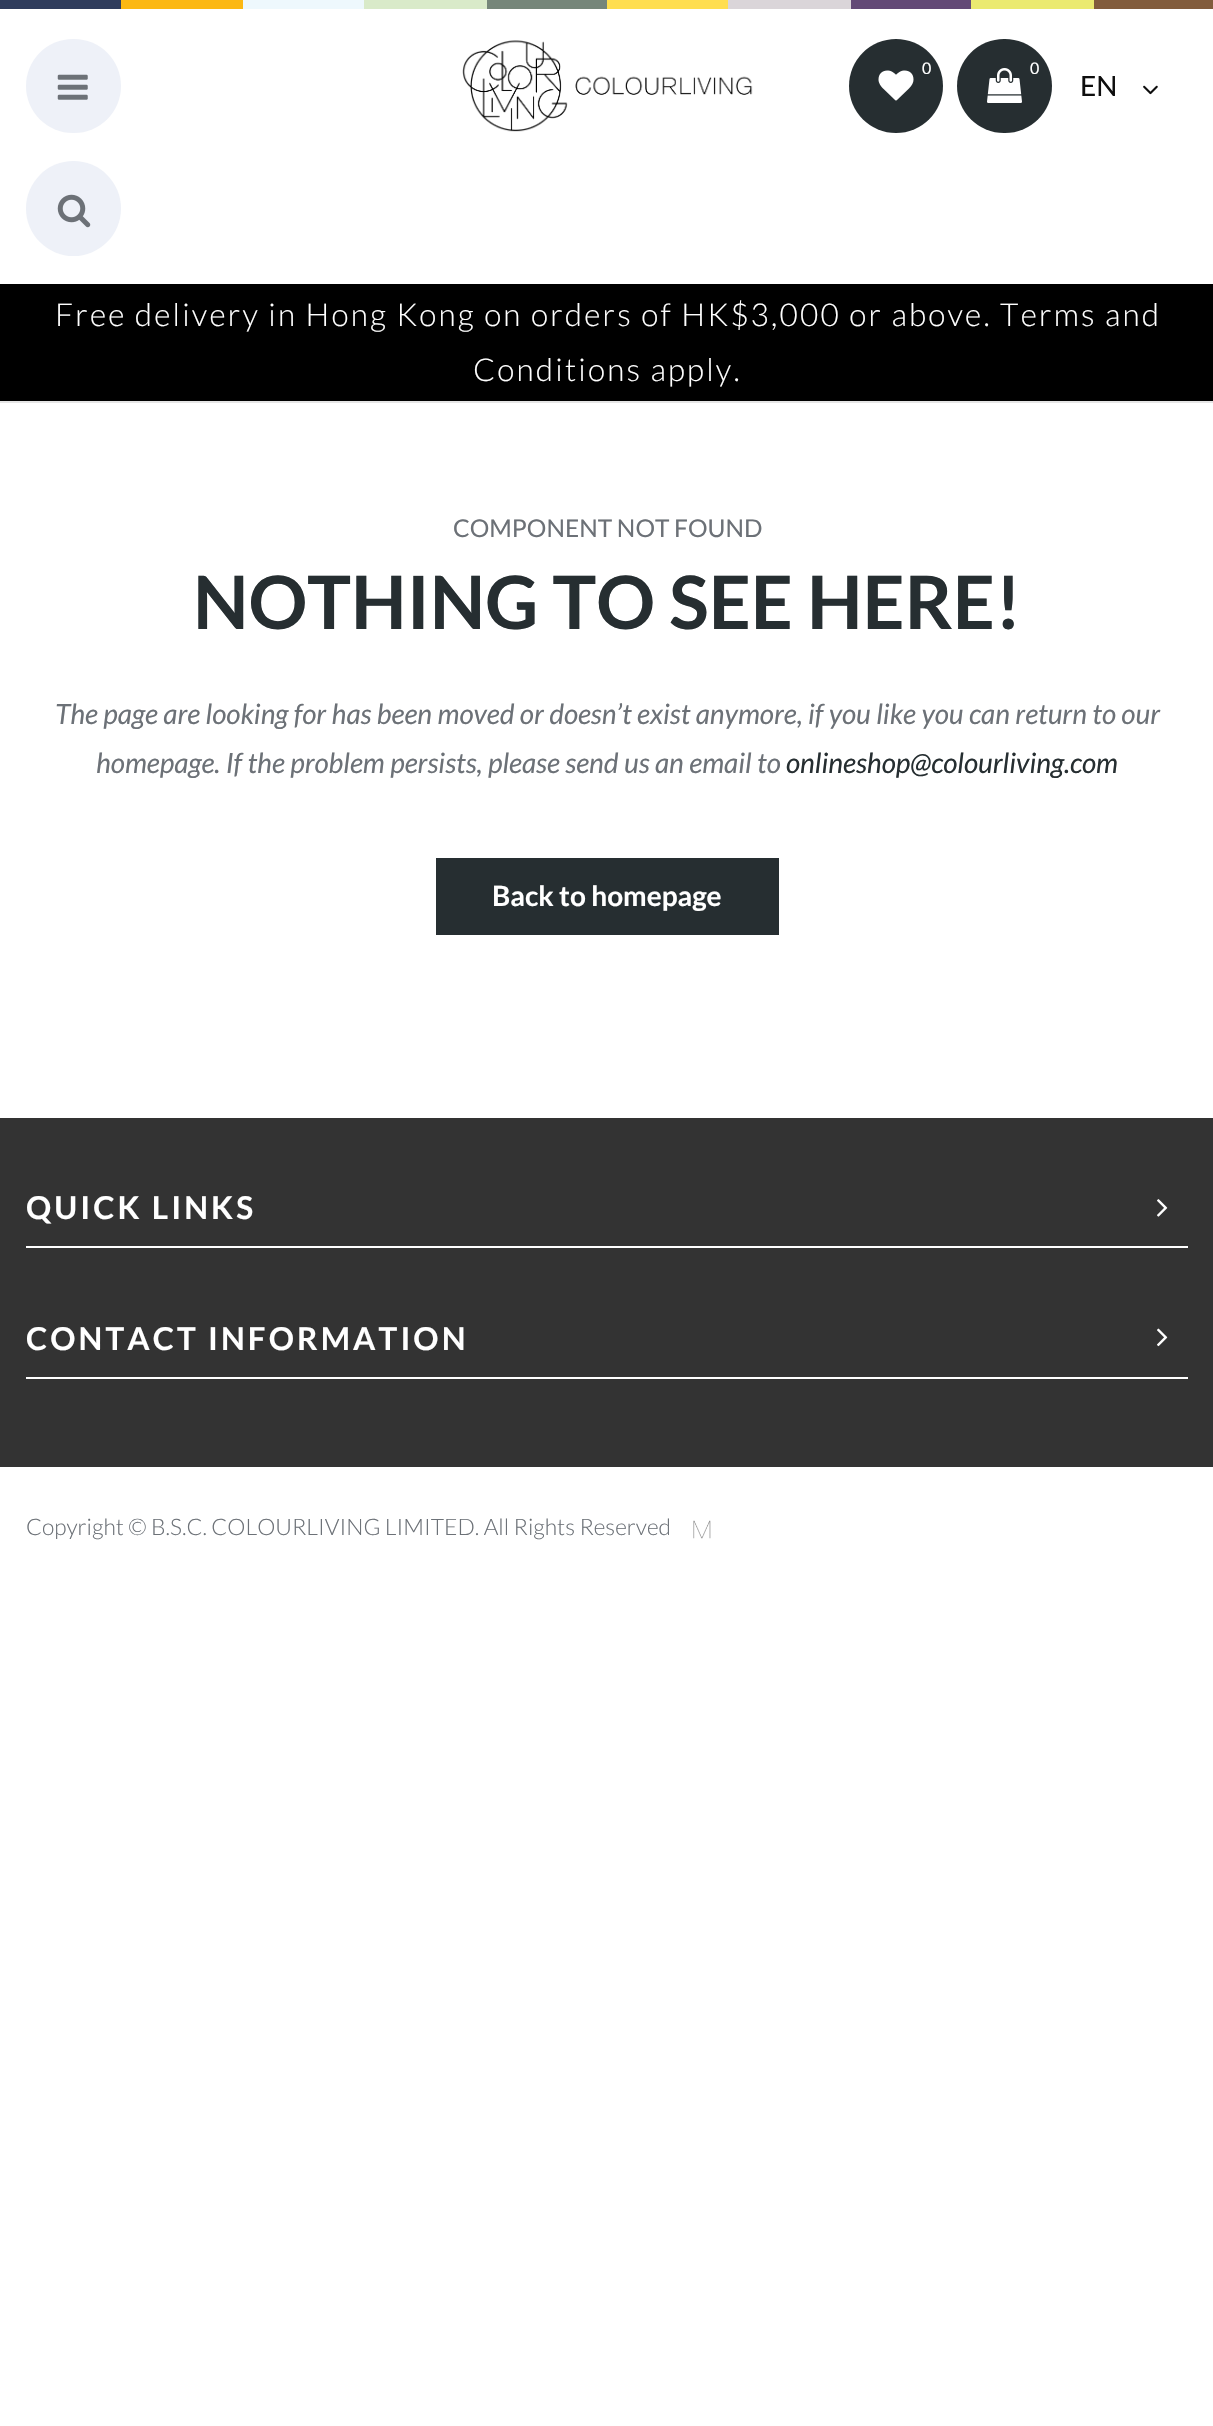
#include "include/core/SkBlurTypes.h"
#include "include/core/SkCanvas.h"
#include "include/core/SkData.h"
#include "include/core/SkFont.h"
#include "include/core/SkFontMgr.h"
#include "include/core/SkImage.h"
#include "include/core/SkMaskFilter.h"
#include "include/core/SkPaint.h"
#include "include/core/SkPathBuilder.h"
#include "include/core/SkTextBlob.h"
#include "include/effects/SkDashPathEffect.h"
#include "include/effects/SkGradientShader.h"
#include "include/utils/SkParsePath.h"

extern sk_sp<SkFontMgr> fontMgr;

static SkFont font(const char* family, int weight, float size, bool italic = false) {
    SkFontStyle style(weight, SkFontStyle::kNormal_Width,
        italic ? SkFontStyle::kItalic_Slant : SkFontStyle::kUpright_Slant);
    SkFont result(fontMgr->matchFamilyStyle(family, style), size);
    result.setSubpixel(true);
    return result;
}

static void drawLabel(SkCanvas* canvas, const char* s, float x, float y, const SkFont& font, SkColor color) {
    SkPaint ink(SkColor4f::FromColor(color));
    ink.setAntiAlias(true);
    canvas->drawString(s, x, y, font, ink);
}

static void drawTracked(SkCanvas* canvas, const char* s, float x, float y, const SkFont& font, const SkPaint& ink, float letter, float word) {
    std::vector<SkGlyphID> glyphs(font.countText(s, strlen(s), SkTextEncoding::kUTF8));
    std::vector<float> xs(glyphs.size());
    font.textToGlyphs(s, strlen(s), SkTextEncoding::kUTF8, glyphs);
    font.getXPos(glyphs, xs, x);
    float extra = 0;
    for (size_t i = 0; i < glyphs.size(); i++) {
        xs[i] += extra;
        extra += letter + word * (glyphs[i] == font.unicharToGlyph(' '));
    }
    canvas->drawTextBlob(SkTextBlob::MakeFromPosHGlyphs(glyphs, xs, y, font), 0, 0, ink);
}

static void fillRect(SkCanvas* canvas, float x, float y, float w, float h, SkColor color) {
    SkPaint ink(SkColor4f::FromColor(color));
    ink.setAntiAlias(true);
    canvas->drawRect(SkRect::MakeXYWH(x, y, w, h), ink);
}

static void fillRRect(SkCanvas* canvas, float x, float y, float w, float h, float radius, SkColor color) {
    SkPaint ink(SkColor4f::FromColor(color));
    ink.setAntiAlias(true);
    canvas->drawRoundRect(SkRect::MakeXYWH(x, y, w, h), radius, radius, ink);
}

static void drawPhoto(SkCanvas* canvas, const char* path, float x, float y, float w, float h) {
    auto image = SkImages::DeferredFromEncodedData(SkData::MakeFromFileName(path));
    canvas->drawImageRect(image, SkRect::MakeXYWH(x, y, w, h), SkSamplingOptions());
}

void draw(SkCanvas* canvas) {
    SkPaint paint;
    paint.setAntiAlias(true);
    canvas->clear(0xFFFFFFFF);
    fillRect(canvas, 0, 0, 121, 9, 0xFF2F3C5C);
    fillRect(canvas, 121, 0, 122, 9, 0xFFFCB813);
    fillRect(canvas, 243, 0, 121, 9, 0xFFEEF8FD);
    fillRect(canvas, 364, 0, 123, 9, 0xFFD9EAC9);
    fillRect(canvas, 487, 0, 120, 9, 0xFF76867A);
    fillRect(canvas, 607, 0, 121, 9, 0xFFFFDE4F);
    fillRect(canvas, 728, 0, 123, 9, 0xFFDAD5D9);
    fillRect(canvas, 851, 0, 120, 9, 0xFF634976);
    fillRect(canvas, 971, 0, 123, 9, 0xFFEBEA70);
    fillRect(canvas, 1094, 0, 119, 9, 0xFF825C3C);
    fillRRect(canvas, 26, 39, 95, 94, 47, 0xFFEEF1F8);
    drawPhoto(canvas, "assets/img1.png", 57, 74, 31, 26);
    paint.setColor(0xFFEEF1F8);
    canvas->drawCircle(73.5f, 208.5f, 47.5f, paint);
    drawPhoto(canvas, "assets/img2.png", 57, 194, 34, 34);
    drawPhoto(canvas, "assets/img3.png", 462, 40, 291, 92);
    paint.setColor(0xFF262E31);
    canvas->drawCircle(896, 86, 47, paint);
    SkFont font1 = font("Lato", 400, 16);
    drawLabel(canvas, "0", 922, 74, font1, 0xFFFFFFFF);
    drawPhoto(canvas, "assets/img4.png", 878, 70, 36, 31);
    fillRRect(canvas, 957, 39, 95, 94, 47, 0xFF262E31);
    drawPhoto(canvas, "assets/img5.png", 987, 68, 35, 35);
    drawLabel(canvas, "0", 1030, 74, font1, 0xFFFFFFFF);
    SkFont font2 = font("Lato", 400, 28);
    drawLabel(canvas, "EN", 1080, 96, font2, 0xFF0E0E0E);
    drawPhoto(canvas, "assets/img6.png", 1143, 85, 15, 10);
    fillRect(canvas, 0, 284, 1213, 117, 0xFF000000);
    SkFont font3 = font("Lato", 300, 31.5f);
    paint.setColor(0xFFFFFFFF);
    drawTracked(canvas, "Free delivery in Hong Kong on orders of HK$3,000 or above. Terms and", 55, 326, font3, paint, 2.2f, 0);
    drawTracked(canvas, "Conditions apply.", 473, 381, font3, paint, 2.2f, 0);
    fillRect(canvas, 0, 401, 1213, 2, 0xFFE5E5E5);
    SkFont font4 = font("Lato", 400, 24.5f);
    drawLabel(canvas, "COMPONENT NOT FOUND", 453, 537, font4, 0xFF6C7177);
    SkFont font5 = font("Lato", 700, 73.5f);
    drawLabel(canvas, "NOTHING TO SEE HERE!", 193, 629, font5, 0xFF262E31);
    SkFont font6 = font("Lato", 400, 28, true);
    drawLabel(canvas, "The page are looking for has been moved or doesn’t exist anymore, if you like you can return to our", 55, 724, font6, 0xFF6C7177);
    drawLabel(canvas, "homepage. If the problem persists, please send us an email to", 96, 773, font6, 0xFF6C7177);
    drawLabel(canvas, "onlineshop@colourliving.com", 786, 773, font6, 0xFF262E31);
    fillRect(canvas, 436, 858, 343, 77, 0xFF262E31);
    SkFont font7 = font("Lato", 700, 28);
    drawLabel(canvas, "Back to homepage", 492, 906, font7, 0xFFFFFFFF);
    fillRect(canvas, 0, 1118, 1213, 349, 0xFF333333);
    fillRect(canvas, 26, 1246, 1162, 2, 0xFFFFFFFF);
    SkFont font8 = font("Lato", 700, 31.5f);
    drawTracked(canvas, "QUICK LINKS", 26, 1219, font8, paint, 3.1f, 0);
    drawPhoto(canvas, "assets/img7.png", 1157, 1199, 11, 18);
    fillRect(canvas, 26, 1377, 1162, 2, 0xFFFFFFFF);
    drawTracked(canvas, "CONTACT INFORMATION", 26, 1350, font8, paint, 3.1f, 0);
    drawPhoto(canvas, "assets/img8.png", 1157, 1328, 11, 19);
    SkFont font9 = font("Lato", 300, 22.75f);
    drawLabel(canvas, "Copyright © B.S.C. COLOURLIVING LIMITED. All Rights Reserved", 26, 1535, font9, 0xFF6C7177);
    drawPhoto(canvas, "assets/img9.png", 693, 1520, 18, 19);
}
